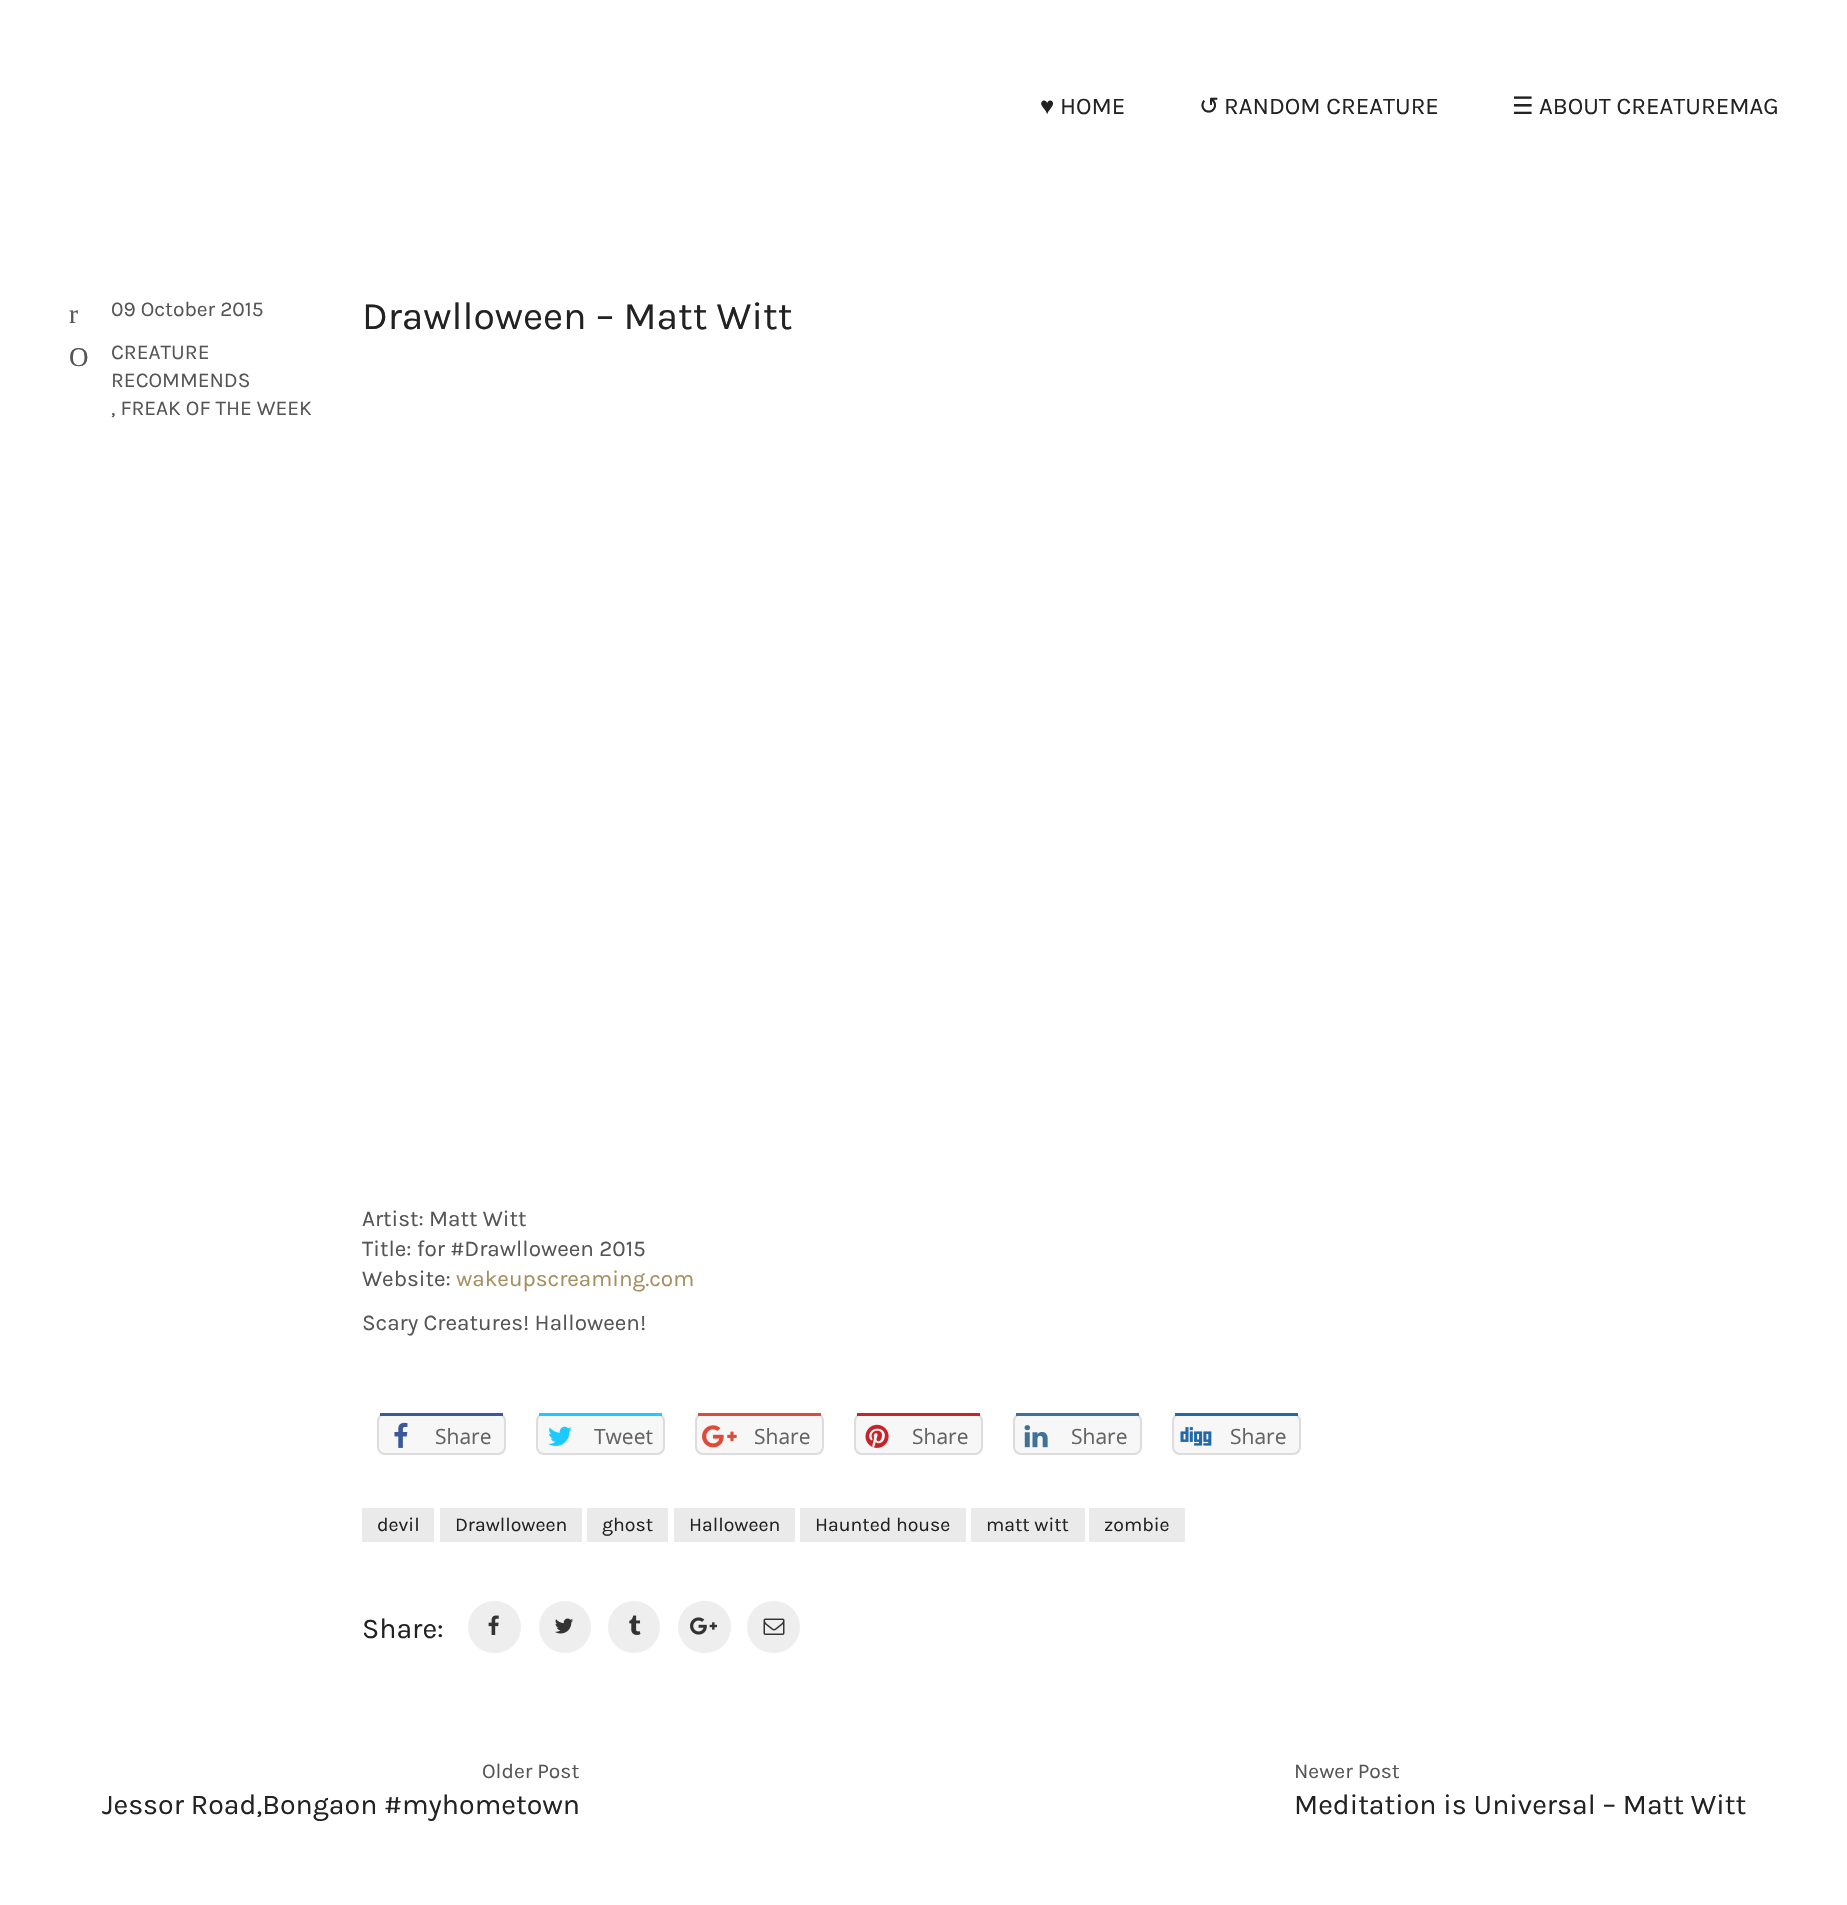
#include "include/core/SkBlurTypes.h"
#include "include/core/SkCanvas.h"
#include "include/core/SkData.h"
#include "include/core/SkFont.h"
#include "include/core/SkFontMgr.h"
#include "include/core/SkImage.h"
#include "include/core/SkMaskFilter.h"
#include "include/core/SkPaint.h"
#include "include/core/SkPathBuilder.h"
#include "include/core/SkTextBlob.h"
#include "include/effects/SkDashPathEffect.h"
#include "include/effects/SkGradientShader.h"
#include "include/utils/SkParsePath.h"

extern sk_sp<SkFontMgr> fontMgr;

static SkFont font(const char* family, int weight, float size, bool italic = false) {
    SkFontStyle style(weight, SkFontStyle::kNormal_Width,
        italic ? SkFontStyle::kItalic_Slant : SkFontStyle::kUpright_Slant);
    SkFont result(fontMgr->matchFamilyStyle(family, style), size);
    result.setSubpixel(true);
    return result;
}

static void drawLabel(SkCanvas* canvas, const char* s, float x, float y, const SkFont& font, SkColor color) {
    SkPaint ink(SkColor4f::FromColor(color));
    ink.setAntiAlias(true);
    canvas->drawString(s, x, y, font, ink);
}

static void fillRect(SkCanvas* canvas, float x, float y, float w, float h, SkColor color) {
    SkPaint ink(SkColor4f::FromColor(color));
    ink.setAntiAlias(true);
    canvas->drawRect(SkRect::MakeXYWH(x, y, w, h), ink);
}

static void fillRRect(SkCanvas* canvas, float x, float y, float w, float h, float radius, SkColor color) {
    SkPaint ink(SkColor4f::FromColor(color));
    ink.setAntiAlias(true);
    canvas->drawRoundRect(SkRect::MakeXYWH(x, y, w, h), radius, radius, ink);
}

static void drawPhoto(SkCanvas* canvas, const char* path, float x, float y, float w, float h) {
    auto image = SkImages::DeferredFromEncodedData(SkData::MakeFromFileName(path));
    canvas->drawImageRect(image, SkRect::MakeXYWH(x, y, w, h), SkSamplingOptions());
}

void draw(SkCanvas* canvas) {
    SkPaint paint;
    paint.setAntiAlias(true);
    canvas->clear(0xFFFFFFFF);
    SkFont font1 = font("Liberation Sans", 400, 24);
    drawLabel(canvas, "♥", 1040, 114, font1, 0xFF222222);
    SkFont font2 = font("Karla", 400, 24);
    drawLabel(canvas, "HOME", 1060, 114, font2, 0xFF222222);
    SkFont font3 = font("DejaVu Sans", 400, 24);
    drawLabel(canvas, "↺", 1199, 114, font3, 0xFF222222);
    drawLabel(canvas, "RANDOM CREATURE", 1224, 114, font2, 0xFF222222);
    drawLabel(canvas, "☰", 1512, 114, font3, 0xFF222222);
    drawLabel(canvas, "ABOUT CREATUREMAG", 1539, 114, font2, 0xFF222222);
    SkFont font4 = font("Liberation Serif", 400, 27);
    drawLabel(canvas, "r", 69, 323, font4, 0xFF555555);
    SkFont font5 = font("Karla", 400, 21);
    drawLabel(canvas, "09 October 2015", 111, 316, font5, 0xFF555555);
    drawLabel(canvas, "O", 69, 366, font4, 0xFF555555);
    drawLabel(canvas, "CREATURE", 111, 359, font5, 0xFF555555);
    drawLabel(canvas, "RECOMMENDS", 111, 387, font5, 0xFF555555);
    drawLabel(canvas, ", FREAK OF THE WEEK", 111, 415, font5, 0xFF555555);
    SkFont font6 = font("Karla", 400, 39);
    drawLabel(canvas, "Drawlloween – Matt Witt", 362, 329, font6, 0xFF222222);
    SkFont font7 = font("Karla", 400, 22.5f);
    drawLabel(canvas, "Artist: Matt Witt", 362, 1226, font7, 0xFF555555);
    drawLabel(canvas, "Title: for #Drawlloween 2015", 362, 1256, font7, 0xFF555555);
    drawLabel(canvas, "Website:", 362, 1286, font7, 0xFF555555);
    drawLabel(canvas, "wakeupscreaming.com", 456, 1286, font7, 0xFFA58F60);
    drawLabel(canvas, "Scary Creatures! Halloween!", 362, 1330, font7, 0xFF555555);
    paint.setColor(0xFFF7F7F7);
    canvas->drawRoundRect(SkRect::MakeXYWH(378, 1414, 127, 40), 7, 7, paint);
    paint.setStroke(true);
    paint.setStrokeWidth(2);
    paint.setColor(0xFFDCDCDC);
    canvas->drawRoundRect(SkRect::MakeXYWH(378, 1414, 127, 40), 7, 7, paint);
    fillRect(canvas, 380, 1413, 123, 3, 0xFF3B5998);
    drawPhoto(canvas, "assets/img1.png", 394, 1422, 14, 26);
    SkFont font8 = font("Open Sans", 400, 21);
    drawLabel(canvas, "Share", 435, 1444, font8, 0xFF636363);
    paint.setStroke(false);
    paint.setColor(0xFFF7F7F7);
    canvas->drawRoundRect(SkRect::MakeXYWH(537, 1414, 127, 40), 7, 7, paint);
    paint.setStroke(true);
    paint.setColor(0xFFDCDCDC);
    canvas->drawRoundRect(SkRect::MakeXYWH(537, 1414, 127, 40), 7, 7, paint);
    fillRect(canvas, 539, 1413, 123, 3, 0xFF1DCAFF);
    drawPhoto(canvas, "assets/img2.png", 548, 1426, 24, 20);
    drawLabel(canvas, "Tweet", 594, 1444, font8, 0xFF636363);
    paint.setStroke(false);
    paint.setColor(0xFFF7F7F7);
    canvas->drawRoundRect(SkRect::MakeXYWH(696, 1414, 127, 40), 7, 7, paint);
    paint.setStroke(true);
    paint.setColor(0xFFDCDCDC);
    canvas->drawRoundRect(SkRect::MakeXYWH(696, 1414, 127, 40), 7, 7, paint);
    fillRect(canvas, 698, 1413, 123, 3, 0xFFDD4B39);
    drawPhoto(canvas, "assets/img3.png", 702, 1425, 35, 23);
    drawLabel(canvas, "Share", 754, 1444, font8, 0xFF636363);
    paint.setStroke(false);
    paint.setColor(0xFFF7F7F7);
    canvas->drawRoundRect(SkRect::MakeXYWH(855, 1414, 127, 40), 7, 7, paint);
    paint.setStroke(true);
    paint.setColor(0xFFDCDCDC);
    canvas->drawRoundRect(SkRect::MakeXYWH(855, 1414, 127, 40), 7, 7, paint);
    fillRect(canvas, 857, 1413, 123, 3, 0xFFC92228);
    drawPhoto(canvas, "assets/img4.png", 865, 1424, 24, 24);
    drawLabel(canvas, "Share", 912, 1444, font8, 0xFF636363);
    paint.setStroke(false);
    paint.setColor(0xFFF7F7F7);
    canvas->drawRoundRect(SkRect::MakeXYWH(1014, 1414, 127, 40), 7, 7, paint);
    paint.setStroke(true);
    paint.setColor(0xFFDCDCDC);
    canvas->drawRoundRect(SkRect::MakeXYWH(1014, 1414, 127, 40), 7, 7, paint);
    fillRect(canvas, 1016, 1413, 123, 3, 0xFF3F729B);
    drawPhoto(canvas, "assets/img5.png", 1024, 1425, 24, 23);
    drawLabel(canvas, "Share", 1071, 1444, font8, 0xFF636363);
    paint.setStroke(false);
    paint.setColor(0xFFF7F7F7);
    canvas->drawRoundRect(SkRect::MakeXYWH(1173, 1414, 127, 40), 7, 7, paint);
    paint.setStroke(true);
    paint.setColor(0xFFDCDCDC);
    canvas->drawRoundRect(SkRect::MakeXYWH(1173, 1414, 127, 40), 7, 7, paint);
    fillRect(canvas, 1175, 1413, 123, 3, 0xFF2169A8);
    drawPhoto(canvas, "assets/img6.png", 1180, 1427, 32, 19);
    drawLabel(canvas, "Share", 1230, 1444, font8, 0xFF636363);
    fillRect(canvas, 362, 1508, 72, 34, 0xFFEAEAEA);
    SkFont font9 = font("Karla", 400, 19.5f);
    drawLabel(canvas, "devil", 377, 1531, font9, 0xFF222222);
    fillRect(canvas, 440, 1508, 142, 34, 0xFFEAEAEA);
    drawLabel(canvas, "Drawlloween", 455, 1531, font9, 0xFF222222);
    fillRect(canvas, 587, 1508, 81, 34, 0xFFEAEAEA);
    drawLabel(canvas, "ghost", 602, 1531, font9, 0xFF222222);
    fillRect(canvas, 674, 1508, 121, 34, 0xFFEAEAEA);
    drawLabel(canvas, "Halloween", 689, 1531, font9, 0xFF222222);
    fillRect(canvas, 800, 1508, 166, 34, 0xFFEAEAEA);
    drawLabel(canvas, "Haunted house", 815, 1531, font9, 0xFF222222);
    fillRect(canvas, 971, 1508, 114, 34, 0xFFEAEAEA);
    drawLabel(canvas, "matt witt", 986, 1531, font9, 0xFF222222);
    fillRect(canvas, 1089, 1508, 96, 34, 0xFFEAEAEA);
    drawLabel(canvas, "zombie", 1104, 1531, font9, 0xFF222222);
    SkFont font10 = font("Karla", 400, 28.5f);
    drawLabel(canvas, "Share:", 362, 1638, font10, 0xFF222222);
    fillRRect(canvas, 468, 1601, 53, 52, 26, 0xFFEEEEEE);
    drawPhoto(canvas, "assets/img7.png", 488, 1615, 11, 20);
    paint.setStroke(false);
    paint.setColor(0xFFEEEEEE);
    canvas->drawCircle(565, 1627, 26, paint);
    drawPhoto(canvas, "assets/img8.png", 555, 1618, 19, 16);
    canvas->drawCircle(634, 1627, 26, paint);
    drawPhoto(canvas, "assets/img9.png", 629, 1615, 12, 20);
    fillRRect(canvas, 678, 1601, 53, 52, 26, 0xFFEEEEEE);
    drawPhoto(canvas, "assets/img10.png", 690, 1617, 27, 18);
    fillRRect(canvas, 747, 1601, 53, 52, 26, 0xFFEEEEEE);
    drawPhoto(canvas, "assets/img11.png", 763, 1618, 22, 17);
    drawLabel(canvas, "Older Post", 482, 1778, font5, 0xFF555555);
    drawLabel(canvas, "Jessor Road,Bongaon #myhometown", 102, 1814, font10, 0xFF222222);
    drawLabel(canvas, "Newer Post", 1294, 1778, font5, 0xFF555555);
    drawLabel(canvas, "Meditation is Universal – Matt Witt", 1294, 1814, font10, 0xFF222222);
}
